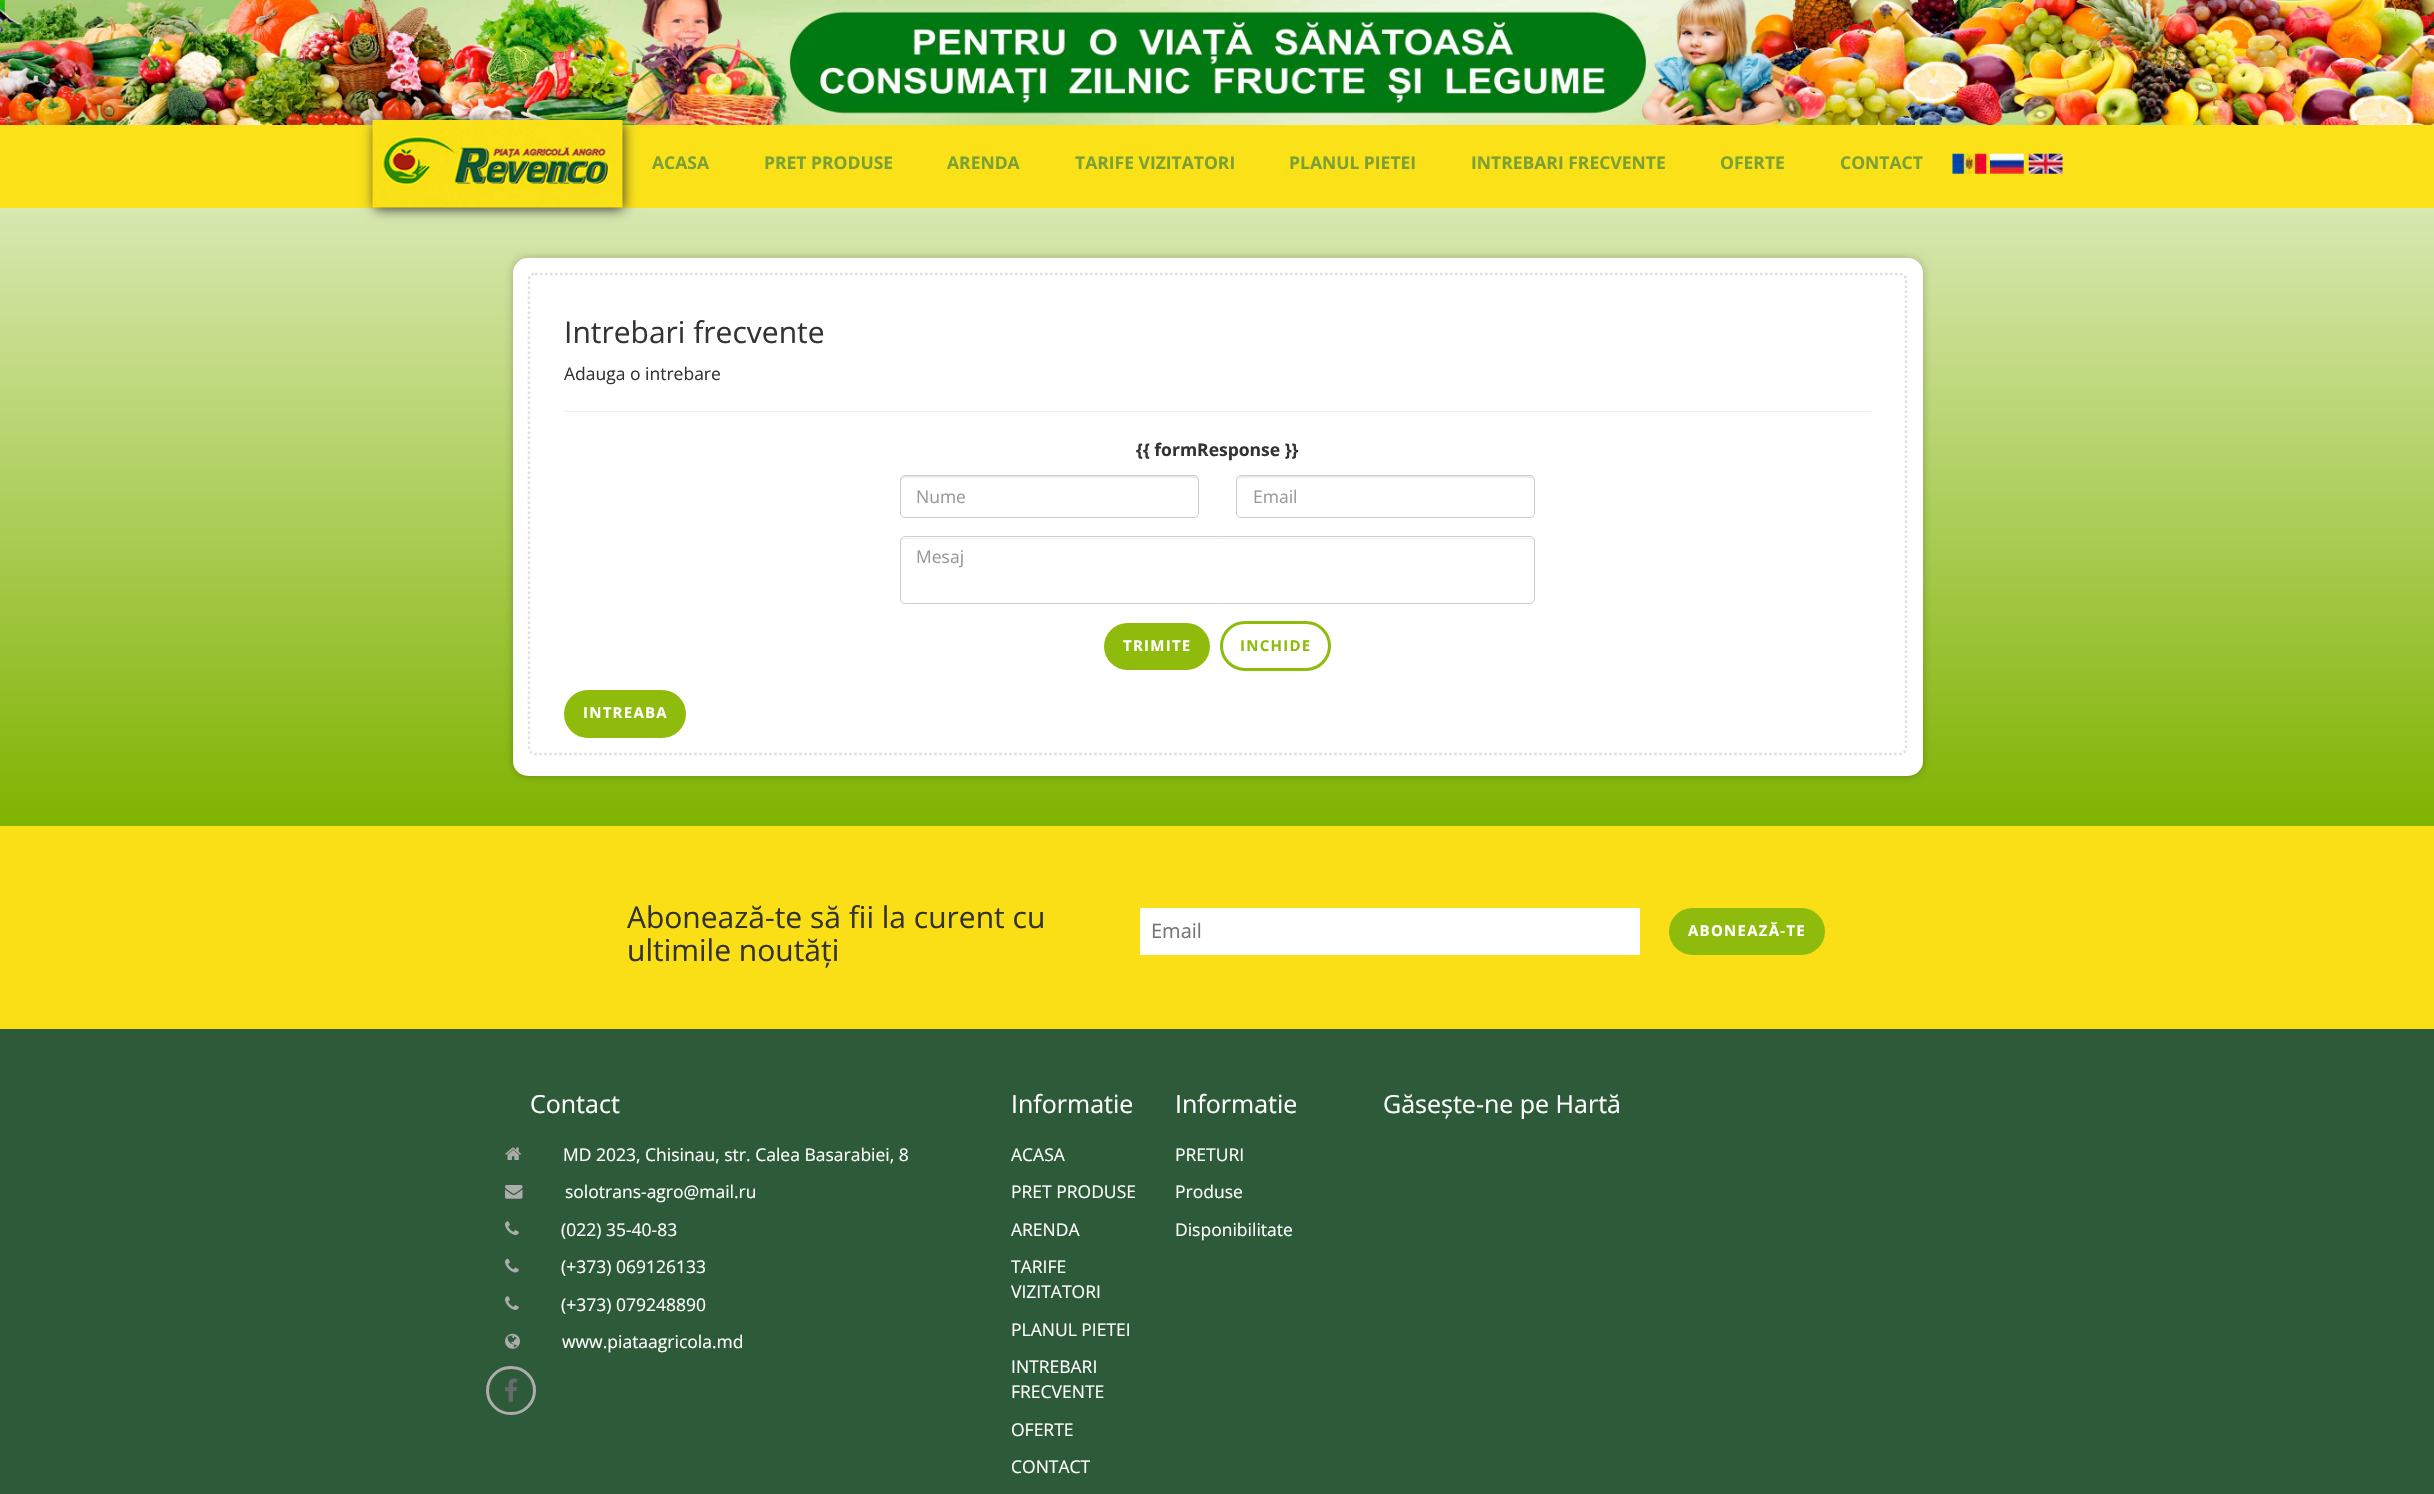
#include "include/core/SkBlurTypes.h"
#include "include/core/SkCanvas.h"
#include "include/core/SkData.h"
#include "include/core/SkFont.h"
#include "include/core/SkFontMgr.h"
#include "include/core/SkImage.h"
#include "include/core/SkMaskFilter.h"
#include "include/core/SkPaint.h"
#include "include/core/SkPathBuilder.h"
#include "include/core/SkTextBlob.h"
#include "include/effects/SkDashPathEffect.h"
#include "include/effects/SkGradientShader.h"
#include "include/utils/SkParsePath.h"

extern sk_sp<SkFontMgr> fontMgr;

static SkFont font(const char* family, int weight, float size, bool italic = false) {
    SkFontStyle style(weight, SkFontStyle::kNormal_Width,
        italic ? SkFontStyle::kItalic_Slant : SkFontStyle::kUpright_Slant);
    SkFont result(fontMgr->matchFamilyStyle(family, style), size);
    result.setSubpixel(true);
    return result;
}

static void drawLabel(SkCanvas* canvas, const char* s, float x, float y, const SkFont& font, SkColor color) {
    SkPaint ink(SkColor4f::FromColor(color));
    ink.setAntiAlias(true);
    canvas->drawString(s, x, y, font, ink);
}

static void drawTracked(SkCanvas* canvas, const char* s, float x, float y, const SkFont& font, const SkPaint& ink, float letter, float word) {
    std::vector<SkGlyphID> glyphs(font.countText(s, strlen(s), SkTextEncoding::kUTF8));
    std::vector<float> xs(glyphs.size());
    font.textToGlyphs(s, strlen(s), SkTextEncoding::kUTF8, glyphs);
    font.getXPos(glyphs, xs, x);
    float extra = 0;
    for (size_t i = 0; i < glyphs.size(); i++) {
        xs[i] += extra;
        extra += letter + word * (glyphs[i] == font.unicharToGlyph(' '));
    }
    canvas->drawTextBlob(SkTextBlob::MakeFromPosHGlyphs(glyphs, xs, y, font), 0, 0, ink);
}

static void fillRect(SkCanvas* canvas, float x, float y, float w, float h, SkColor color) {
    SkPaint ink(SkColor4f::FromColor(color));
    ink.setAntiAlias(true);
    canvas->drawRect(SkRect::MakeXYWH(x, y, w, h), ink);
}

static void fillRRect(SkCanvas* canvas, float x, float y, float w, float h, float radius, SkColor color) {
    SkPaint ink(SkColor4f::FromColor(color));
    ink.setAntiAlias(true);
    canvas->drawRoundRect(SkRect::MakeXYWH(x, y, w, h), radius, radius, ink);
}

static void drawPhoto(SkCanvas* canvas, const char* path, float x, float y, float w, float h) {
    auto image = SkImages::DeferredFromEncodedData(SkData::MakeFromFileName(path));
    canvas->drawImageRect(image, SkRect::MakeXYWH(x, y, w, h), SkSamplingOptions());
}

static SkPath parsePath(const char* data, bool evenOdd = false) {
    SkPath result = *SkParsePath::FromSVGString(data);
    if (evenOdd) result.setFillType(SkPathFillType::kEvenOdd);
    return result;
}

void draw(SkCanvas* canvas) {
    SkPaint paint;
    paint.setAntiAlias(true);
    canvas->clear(0xFFFFFFFF);
    drawPhoto(canvas, "assets/img1.png", 0, 0, 2434, 125);
    fillRect(canvas, 0, 125, 2434, 83, 0xFFFAE118);
    {
        const SkColor colors[] = {0xFFD8E8B1, 0xFF80B300};
        const float stops[] = {0, 1};
        const SkPoint ends[] = {{1218, 207}, {1218, 826}};
        paint.setShader(SkGradientShader::MakeLinear(ends, colors, stops, 2, SkTileMode::kClamp));
        paint.setAlpha(255);
    }
    canvas->drawRect(SkRect::MakeXYWH(0, 208, 2434, 618), paint);
    paint.setShader(nullptr);
    paint.setColor(0xFF333333);
    paint.setMaskFilter(SkMaskFilter::MakeBlur(kNormal_SkBlurStyle, 6));
    canvas->drawRect(SkRect::MakeXYWH(375, 124, 248, 85), paint);
    paint.setMaskFilter(nullptr);
    drawPhoto(canvas, "assets/img2.png", 372, 120, 251, 88);
    SkFont font1 = font("Open Sans", 700, 17.5f);
    drawLabel(canvas, "ACASA", 652, 169, font1, 0xFF7BA036);
    drawLabel(canvas, "PRET PRODUSE", 764, 169, font1, 0xFF7BA036);
    drawLabel(canvas, "ARENDA", 947, 169, font1, 0xFF7BA036);
    drawLabel(canvas, "TARIFE VIZITATORI", 1075, 169, font1, 0xFF7BA036);
    drawLabel(canvas, "PLANUL PIETEI", 1289, 169, font1, 0xFF7BA036);
    drawLabel(canvas, "INTREBARI FRECVENTE", 1471, 169, font1, 0xFF7BA036);
    drawLabel(canvas, "OFERTE", 1720, 169, font1, 0xFF7BA036);
    drawLabel(canvas, "CONTACT", 1840, 169, font1, 0xFF7BA036);
    drawPhoto(canvas, "assets/img3.png", 1952, 153, 35, 21);
    drawPhoto(canvas, "assets/img4.png", 1990, 153, 34, 21);
    drawPhoto(canvas, "assets/img5.png", 2028, 153, 35, 21);
    paint.setColor(0x3D000000);
    paint.setMaskFilter(SkMaskFilter::MakeBlur(kNormal_SkBlurStyle, 4));
    canvas->drawRoundRect(SkRect::MakeXYWH(513, 258, 1410, 518), 15, 15, paint);
    paint.setMaskFilter(nullptr);
    fillRRect(canvas, 513, 258, 1410, 518, 15, 0xFFFFFFFF);
    paint.setStroke(true);
    paint.setStrokeWidth(2.5f);
    paint.setColor(0xFFE0E0E0);
    paint.setPathEffect(SkDashPathEffect::Make({{2.5f, 2.5f}}, 0));
    canvas->drawPath(parsePath("M535 274H1900C1903.5 274 1906 276.5 1906 280V747.5C1906 751 1903.5 754 1900 754H535C531.5 754 529 751 529 747.5V280C529 276.5 531.5 274 535 274Z"), paint);
    paint.setPathEffect(nullptr);
    SkFont font2 = font("Open Sans", 400, 30);
    drawLabel(canvas, "Intrebari frecvente", 564, 343, font2, 0xFF333333);
    SkFont font3 = font("Open Sans", 400, 17.5f);
    drawLabel(canvas, "Adauga o intrebare", 564, 380, font3, 0xFF333333);
    fillRect(canvas, 564, 411, 1307, 1, 0xFFEEEEEE);
    drawLabel(canvas, "{{ formResponse }}", 1136, 456, font1, 0xFF333333);
    paint.setStroke(false);
    paint.setColor(0xFFECECEC);
    canvas->drawPath(parsePath("M905 478H1194C1196 478 1198 479 1198 481C1198 478 1197 476 1194 476H905C902 476 901 478 901 481C901 479 903 478 905 478Z"), paint);
    paint.setStroke(true);
    paint.setStrokeWidth(1);
    paint.setColor(0xFFCCCCCC);
    canvas->drawRoundRect(SkRect::MakeXYWH(900.5f, 475.5f, 298, 42), 4.5f, 4.5f, paint);
    drawLabel(canvas, "Nume", 916, 503, font3, 0xFF999999);
    paint.setStroke(false);
    paint.setColor(0xFFECECEC);
    canvas->drawPath(parsePath("M1241 478H1530C1532 478 1534 479 1534 481C1534 478 1533 476 1530 476H1242C1239 476 1238 478 1238 481C1238 479 1239 478 1241 478Z"), paint);
    paint.setStroke(true);
    paint.setColor(0xFFCCCCCC);
    canvas->drawRoundRect(SkRect::MakeXYWH(1236.5f, 475.5f, 298, 42), 4.5f, 4.5f, paint);
    drawLabel(canvas, "Email", 1253, 503, font3, 0xFF999999);
    paint.setStroke(false);
    paint.setColor(0xFFECECEC);
    canvas->drawPath(parsePath("M905 539H1530C1532 539 1534 540 1534 542C1534 540 1532 538 1530 538H905C903 538 901 540 901 542C901 540 903 539 905 539Z"), paint);
    paint.setStroke(true);
    paint.setColor(0xFFCCCCCC);
    canvas->drawRoundRect(SkRect::MakeXYWH(900.5f, 536.5f, 634, 67), 4.5f, 4.5f, paint);
    drawLabel(canvas, "Mesaj", 916, 563, font3, 0xFF999999);
    fillRRect(canvas, 1104, 623, 106, 47, 23.5f, 0xFF8FBC0C);
    SkFont font4 = font("Open Sans", 700, 15);
    paint.setStroke(false);
    paint.setColor(0xFFFFFFFF);
    drawTracked(canvas, "TRIMITE", 1123, 651, font4, paint, 1.25f, 0);
    paint.setStroke(true);
    paint.setStrokeWidth(3);
    paint.setColor(0xFF8FBC0C);
    canvas->drawRoundRect(SkRect::MakeXYWH(1221.5f, 622.5f, 108, 47), 23.5f, 23.5f, paint);
    paint.setStroke(false);
    drawTracked(canvas, "INCHIDE", 1240, 651, font4, paint, 1.25f, 0);
    fillRRect(canvas, 564, 690, 122, 48, 24, 0xFF8FBC0C);
    paint.setColor(0xFFFFFFFF);
    drawTracked(canvas, "INTREABA", 583, 718, font4, paint, 1.25f, 0);
    fillRect(canvas, 0, 826, 2434, 203, 0xFFFADF17);
    drawLabel(canvas, "Abonează-te să fii la curent cu", 627, 928, font2, 0xFF333333);
    drawLabel(canvas, "ultimile noutăți", 627, 961, font2, 0xFF333333);
    fillRect(canvas, 1140, 908, 500, 47, 0xFFFFFFFF);
    SkFont font5 = font("Open Sans", 400, 20);
    drawLabel(canvas, "Email", 1151, 938, font5, 0xFF757575);
    fillRRect(canvas, 1669, 908, 156, 47, 23.5f, 0xFF8FBC0C);
    drawTracked(canvas, "ABONEAZĂ-TE", 1688, 936, font4, paint, 1.25f, 0);
    fillRect(canvas, 0, 1029, 2434, 465, 0xFF2D5A38);
    SkFont font6 = font("Open Sans", 400, 25);
    drawLabel(canvas, "Contact", 530, 1113, font6, 0xFFFFFFFF);
    drawPhoto(canvas, "assets/img6.png", 505, 1147, 16, 13);
    drawLabel(canvas, "MD 2023, Chisinau, str. Calea Basarabiei, 8", 563, 1161, font3, 0xFFFFFFFF);
    drawPhoto(canvas, "assets/img7.png", 505, 1185, 18, 14);
    drawLabel(canvas, "solotrans-agro@mail.ru", 565, 1198, font3, 0xFFFFFFFF);
    drawPhoto(canvas, "assets/img8.png", 505, 1221, 14, 14);
    drawLabel(canvas, "(022) 35-40-83", 561, 1236, font3, 0xFFFFFFFF);
    drawPhoto(canvas, "assets/img9.png", 505, 1258, 14, 15);
    drawLabel(canvas, "(+373) 069126133", 561, 1273, font3, 0xFFFFFFFF);
    drawPhoto(canvas, "assets/img8.png", 505, 1296, 14, 14);
    drawLabel(canvas, "(+373) 079248890", 561, 1311, font3, 0xFFFFFFFF);
    drawPhoto(canvas, "assets/img10.png", 505, 1333, 15, 16);
    drawLabel(canvas, "www.piataagricola.md", 562, 1348, font3, 0xFFFFFFFF);
    paint.setStroke(true);
    paint.setColor(0xFFACACAC);
    canvas->drawRoundRect(SkRect::MakeXYWH(487.5f, 1367.5f, 47, 46), 23, 23, paint);
    drawPhoto(canvas, "assets/img11.png", 505, 1378, 13, 24);
    drawLabel(canvas, "Informatie", 1011, 1113, font6, 0xFFFFFFFF);
    drawLabel(canvas, "ACASA", 1011, 1161, font3, 0xFFFFFFFF);
    drawLabel(canvas, "PRET PRODUSE", 1011, 1198, font3, 0xFFFFFFFF);
    drawLabel(canvas, "ARENDA", 1011, 1236, font3, 0xFFFFFFFF);
    drawLabel(canvas, "TARIFE", 1011, 1273, font3, 0xFFFFFFFF);
    drawLabel(canvas, "VIZITATORI", 1011, 1298, font3, 0xFFFFFFFF);
    drawLabel(canvas, "PLANUL PIETEI", 1011, 1336, font3, 0xFFFFFFFF);
    drawLabel(canvas, "INTREBARI", 1011, 1373, font3, 0xFFFFFFFF);
    drawLabel(canvas, "FRECVENTE", 1011, 1398, font3, 0xFFFFFFFF);
    drawLabel(canvas, "OFERTE", 1011, 1436, font3, 0xFFFFFFFF);
    drawLabel(canvas, "CONTACT", 1011, 1473, font3, 0xFFFFFFFF);
    drawLabel(canvas, "Informatie", 1175, 1113, font6, 0xFFFFFFFF);
    drawLabel(canvas, "PRETURI", 1175, 1161, font3, 0xFFFFFFFF);
    drawLabel(canvas, "Produse", 1175, 1198, font3, 0xFFFFFFFF);
    drawLabel(canvas, "Disponibilitate", 1175, 1236, font3, 0xFFFFFFFF);
    drawLabel(canvas, "Găsește-ne pe Hartă", 1383, 1113, font6, 0xFFFFFFFF);
}
